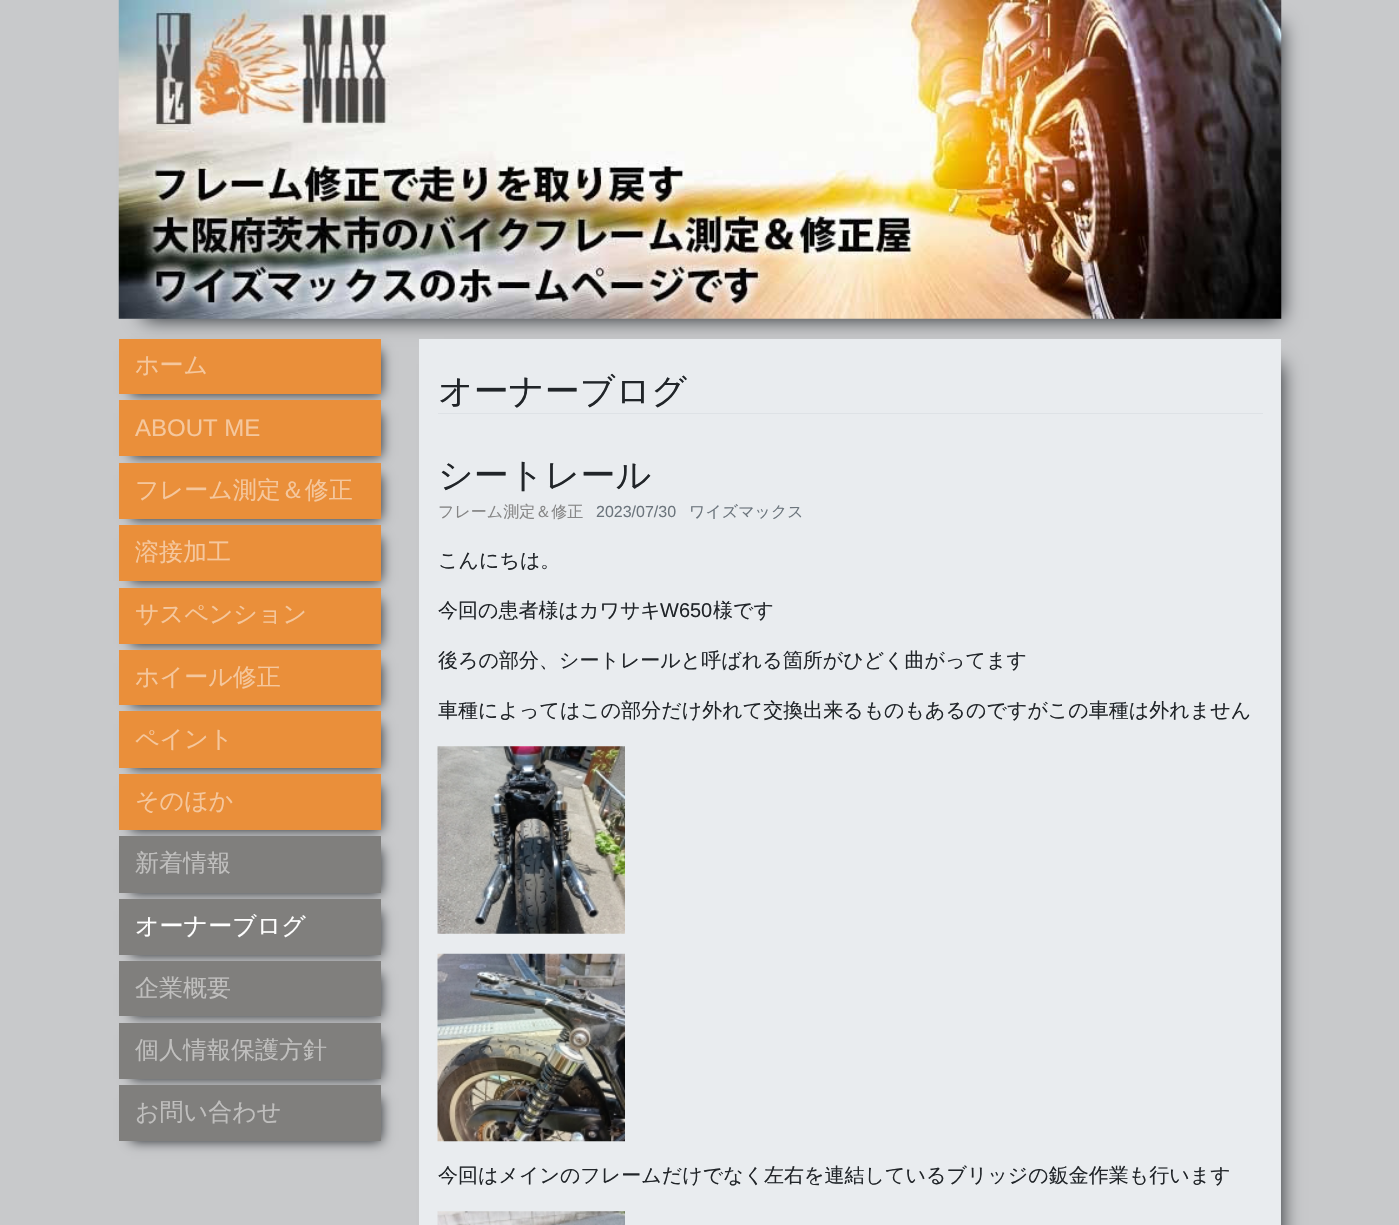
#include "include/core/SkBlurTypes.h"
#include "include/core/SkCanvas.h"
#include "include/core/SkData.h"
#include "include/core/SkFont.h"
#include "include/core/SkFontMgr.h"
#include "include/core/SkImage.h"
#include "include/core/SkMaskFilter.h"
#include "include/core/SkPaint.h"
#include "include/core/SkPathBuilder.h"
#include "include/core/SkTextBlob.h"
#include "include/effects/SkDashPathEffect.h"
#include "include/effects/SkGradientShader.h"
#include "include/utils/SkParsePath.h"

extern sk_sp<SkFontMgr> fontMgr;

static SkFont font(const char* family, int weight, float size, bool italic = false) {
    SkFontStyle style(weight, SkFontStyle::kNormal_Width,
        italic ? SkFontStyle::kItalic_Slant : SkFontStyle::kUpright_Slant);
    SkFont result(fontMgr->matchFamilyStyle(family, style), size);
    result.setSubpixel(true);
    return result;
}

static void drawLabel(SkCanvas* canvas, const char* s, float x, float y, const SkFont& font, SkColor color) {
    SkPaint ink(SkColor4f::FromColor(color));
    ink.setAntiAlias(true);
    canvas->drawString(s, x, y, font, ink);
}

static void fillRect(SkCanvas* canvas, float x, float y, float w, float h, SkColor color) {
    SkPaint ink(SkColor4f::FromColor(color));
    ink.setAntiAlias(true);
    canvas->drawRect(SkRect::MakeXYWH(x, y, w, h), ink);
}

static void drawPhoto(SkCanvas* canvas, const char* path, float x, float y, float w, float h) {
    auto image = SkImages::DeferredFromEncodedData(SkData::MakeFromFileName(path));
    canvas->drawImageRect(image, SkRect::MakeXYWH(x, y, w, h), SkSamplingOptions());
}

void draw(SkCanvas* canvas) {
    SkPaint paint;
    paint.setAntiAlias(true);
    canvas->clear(0xFFC8C9CB);
    paint.setColor(0xFF212529);
    paint.setMaskFilter(SkMaskFilter::MakeBlur(kNormal_SkBlurStyle, 9.5f));
    canvas->drawRect(SkRect::MakeXYWH(144, 25, 1137, 294), paint);
    paint.setMaskFilter(nullptr);
    drawPhoto(canvas, "assets/img1.png", 118, 0, 1164, 319);
    paint.setMaskFilter(SkMaskFilter::MakeBlur(kNormal_SkBlurStyle, 6));
    canvas->drawRect(SkRect::MakeXYWH(131, 351, 250, 43), paint);
    paint.setMaskFilter(nullptr);
    fillRect(canvas, 119, 339, 262, 55, 0xFFEA8F3A);
    SkFont font1 = font("WenQuanYi Zen Hei", 500, 24);
    drawLabel(canvas, "ホーム", 135, 373, font1, 0xFFF5C79D);
    paint.setMaskFilter(SkMaskFilter::MakeBlur(kNormal_SkBlurStyle, 6));
    canvas->drawRect(SkRect::MakeXYWH(131, 413, 250, 43), paint);
    paint.setMaskFilter(nullptr);
    fillRect(canvas, 119, 400, 262, 56, 0xFFEA8F3A);
    SkFont font2 = font("Liberation Sans", 400, 24);
    drawLabel(canvas, "ABOUT ME", 135, 436, font2, 0xFFF5C79D);
    paint.setMaskFilter(SkMaskFilter::MakeBlur(kNormal_SkBlurStyle, 6));
    canvas->drawRect(SkRect::MakeXYWH(131, 475, 250, 44), paint);
    paint.setMaskFilter(nullptr);
    fillRect(canvas, 119, 463, 262, 56, 0xFFEA8F3A);
    drawLabel(canvas, "フレーム測定＆修正", 135, 498, font1, 0xFFF5C79D);
    paint.setMaskFilter(SkMaskFilter::MakeBlur(kNormal_SkBlurStyle, 6));
    canvas->drawRect(SkRect::MakeXYWH(131, 538, 250, 43), paint);
    paint.setMaskFilter(nullptr);
    fillRect(canvas, 119, 525, 262, 56, 0xFFEA8F3A);
    drawLabel(canvas, "溶接加工", 135, 560, font1, 0xFFF5C79D);
    paint.setMaskFilter(SkMaskFilter::MakeBlur(kNormal_SkBlurStyle, 6));
    canvas->drawRect(SkRect::MakeXYWH(131, 600, 250, 44), paint);
    paint.setMaskFilter(nullptr);
    fillRect(canvas, 119, 588, 262, 56, 0xFFEA8F3A);
    drawLabel(canvas, "サスペンション", 135, 622, font1, 0xFFF5C79D);
    paint.setMaskFilter(SkMaskFilter::MakeBlur(kNormal_SkBlurStyle, 6));
    canvas->drawRect(SkRect::MakeXYWH(131, 663, 250, 42), paint);
    paint.setMaskFilter(nullptr);
    fillRect(canvas, 119, 650, 262, 55, 0xFFEA8F3A);
    drawLabel(canvas, "ホイール修正", 135, 685, font1, 0xFFF5C79D);
    paint.setMaskFilter(SkMaskFilter::MakeBlur(kNormal_SkBlurStyle, 6));
    canvas->drawRect(SkRect::MakeXYWH(131, 724, 250, 44), paint);
    paint.setMaskFilter(nullptr);
    fillRect(canvas, 119, 711, 262, 57, 0xFFEA8F3A);
    drawLabel(canvas, "ペイント", 135, 747, font1, 0xFFF5C79D);
    paint.setMaskFilter(SkMaskFilter::MakeBlur(kNormal_SkBlurStyle, 6));
    canvas->drawRect(SkRect::MakeXYWH(131, 786, 250, 44), paint);
    paint.setMaskFilter(nullptr);
    fillRect(canvas, 119, 774, 262, 56, 0xFFEA8F3A);
    drawLabel(canvas, "そのほか", 135, 809, font1, 0xFFF5C79D);
    paint.setMaskFilter(SkMaskFilter::MakeBlur(kNormal_SkBlurStyle, 6));
    canvas->drawRect(SkRect::MakeXYWH(131, 849, 250, 44), paint);
    paint.setMaskFilter(nullptr);
    fillRect(canvas, 119, 836, 262, 57, 0xFF807F7D);
    drawLabel(canvas, "新着情報", 135, 871, font1, 0xFFC0BFBE);
    paint.setMaskFilter(SkMaskFilter::MakeBlur(kNormal_SkBlurStyle, 6));
    canvas->drawRect(SkRect::MakeXYWH(131, 911, 250, 44), paint);
    paint.setMaskFilter(nullptr);
    fillRect(canvas, 119, 899, 262, 56, 0xFF807F7D);
    drawLabel(canvas, "オーナーブログ", 135, 934, font1, 0xFFFFFFFF);
    paint.setMaskFilter(SkMaskFilter::MakeBlur(kNormal_SkBlurStyle, 6));
    canvas->drawRect(SkRect::MakeXYWH(131, 974, 250, 42), paint);
    paint.setMaskFilter(nullptr);
    fillRect(canvas, 119, 961, 262, 55, 0xFF807F7D);
    drawLabel(canvas, "企業概要", 135, 996, font1, 0xFFC0BFBE);
    paint.setMaskFilter(SkMaskFilter::MakeBlur(kNormal_SkBlurStyle, 6));
    canvas->drawRect(SkRect::MakeXYWH(131, 1035, 250, 44), paint);
    paint.setMaskFilter(nullptr);
    fillRect(canvas, 119, 1023, 262, 56, 0xFF807F7D);
    drawLabel(canvas, "個人情報保護方針", 135, 1058, font1, 0xFFC0BFBE);
    paint.setMaskFilter(SkMaskFilter::MakeBlur(kNormal_SkBlurStyle, 6));
    canvas->drawRect(SkRect::MakeXYWH(131, 1098, 250, 43), paint);
    paint.setMaskFilter(nullptr);
    fillRect(canvas, 119, 1085, 262, 56, 0xFF807F7D);
    drawLabel(canvas, "お問い合わせ", 135, 1120, font1, 0xFFC0BFBE);
    paint.setMaskFilter(SkMaskFilter::MakeBlur(kNormal_SkBlurStyle, 9.5f));
    canvas->drawRect(SkRect::MakeXYWH(444, 364, 837, 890), paint);
    paint.setMaskFilter(nullptr);
    fillRect(canvas, 419, 339, 862, 886, 0xFFE9ECEF);
    fillRect(canvas, 438, 413, 825, 1, 0xFFDEE2E6);
    SkFont font3 = font("WenQuanYi Zen Hei", 500, 35);
    drawLabel(canvas, "オーナーブログ", 438, 403, font3, 0xFF212529);
    drawLabel(canvas, "シートレール", 438, 487, font3, 0xFF212529);
    SkFont font4 = font("WenQuanYi Zen Hei", 500, 16);
    drawLabel(canvas, "フレーム測定＆修正", 438, 517, font4, 0xFF868686);
    SkFont font5 = font("Liberation Sans", 400, 16);
    drawLabel(canvas, "2023/07/30", 596, 517, font5, 0xFF6C757D);
    drawLabel(canvas, "ワイズマックス", 689, 517, font4, 0xFF6C757D);
    SkFont font6 = font("WenQuanYi Zen Hei", 500, 20);
    drawLabel(canvas, "こんにちは。", 438, 567, font6, 0xFF212529);
    drawLabel(canvas, "今回の患者様はカワサキ", 438, 617, font6, 0xFF212529);
    SkFont font7 = font("Liberation Sans", 400, 20);
    drawLabel(canvas, "W650", 660, 617, font7, 0xFF212529);
    drawLabel(canvas, "様です", 713, 617, font6, 0xFF212529);
    drawLabel(canvas, "後ろの部分、シートレールと呼ばれる箇所がひどく曲がってます", 438, 667, font6, 0xFF212529);
    drawLabel(canvas, "車種によってはこの部分だけ外れて交換出来るものもあるのですがこの車種は外れません", 438, 717, font6, 0xFF212529);
    drawPhoto(canvas, "assets/img2.png", 437, 746, 188, 188);
    drawPhoto(canvas, "assets/img3.png", 437, 953, 188, 189);
    drawLabel(canvas, "今回はメインのフレームだけでなく左右を連結しているブリッジの鈑金作業も行います", 438, 1182, font6, 0xFF212529);
    drawPhoto(canvas, "assets/img4.png", 437, 1211, 188, 14);
}
